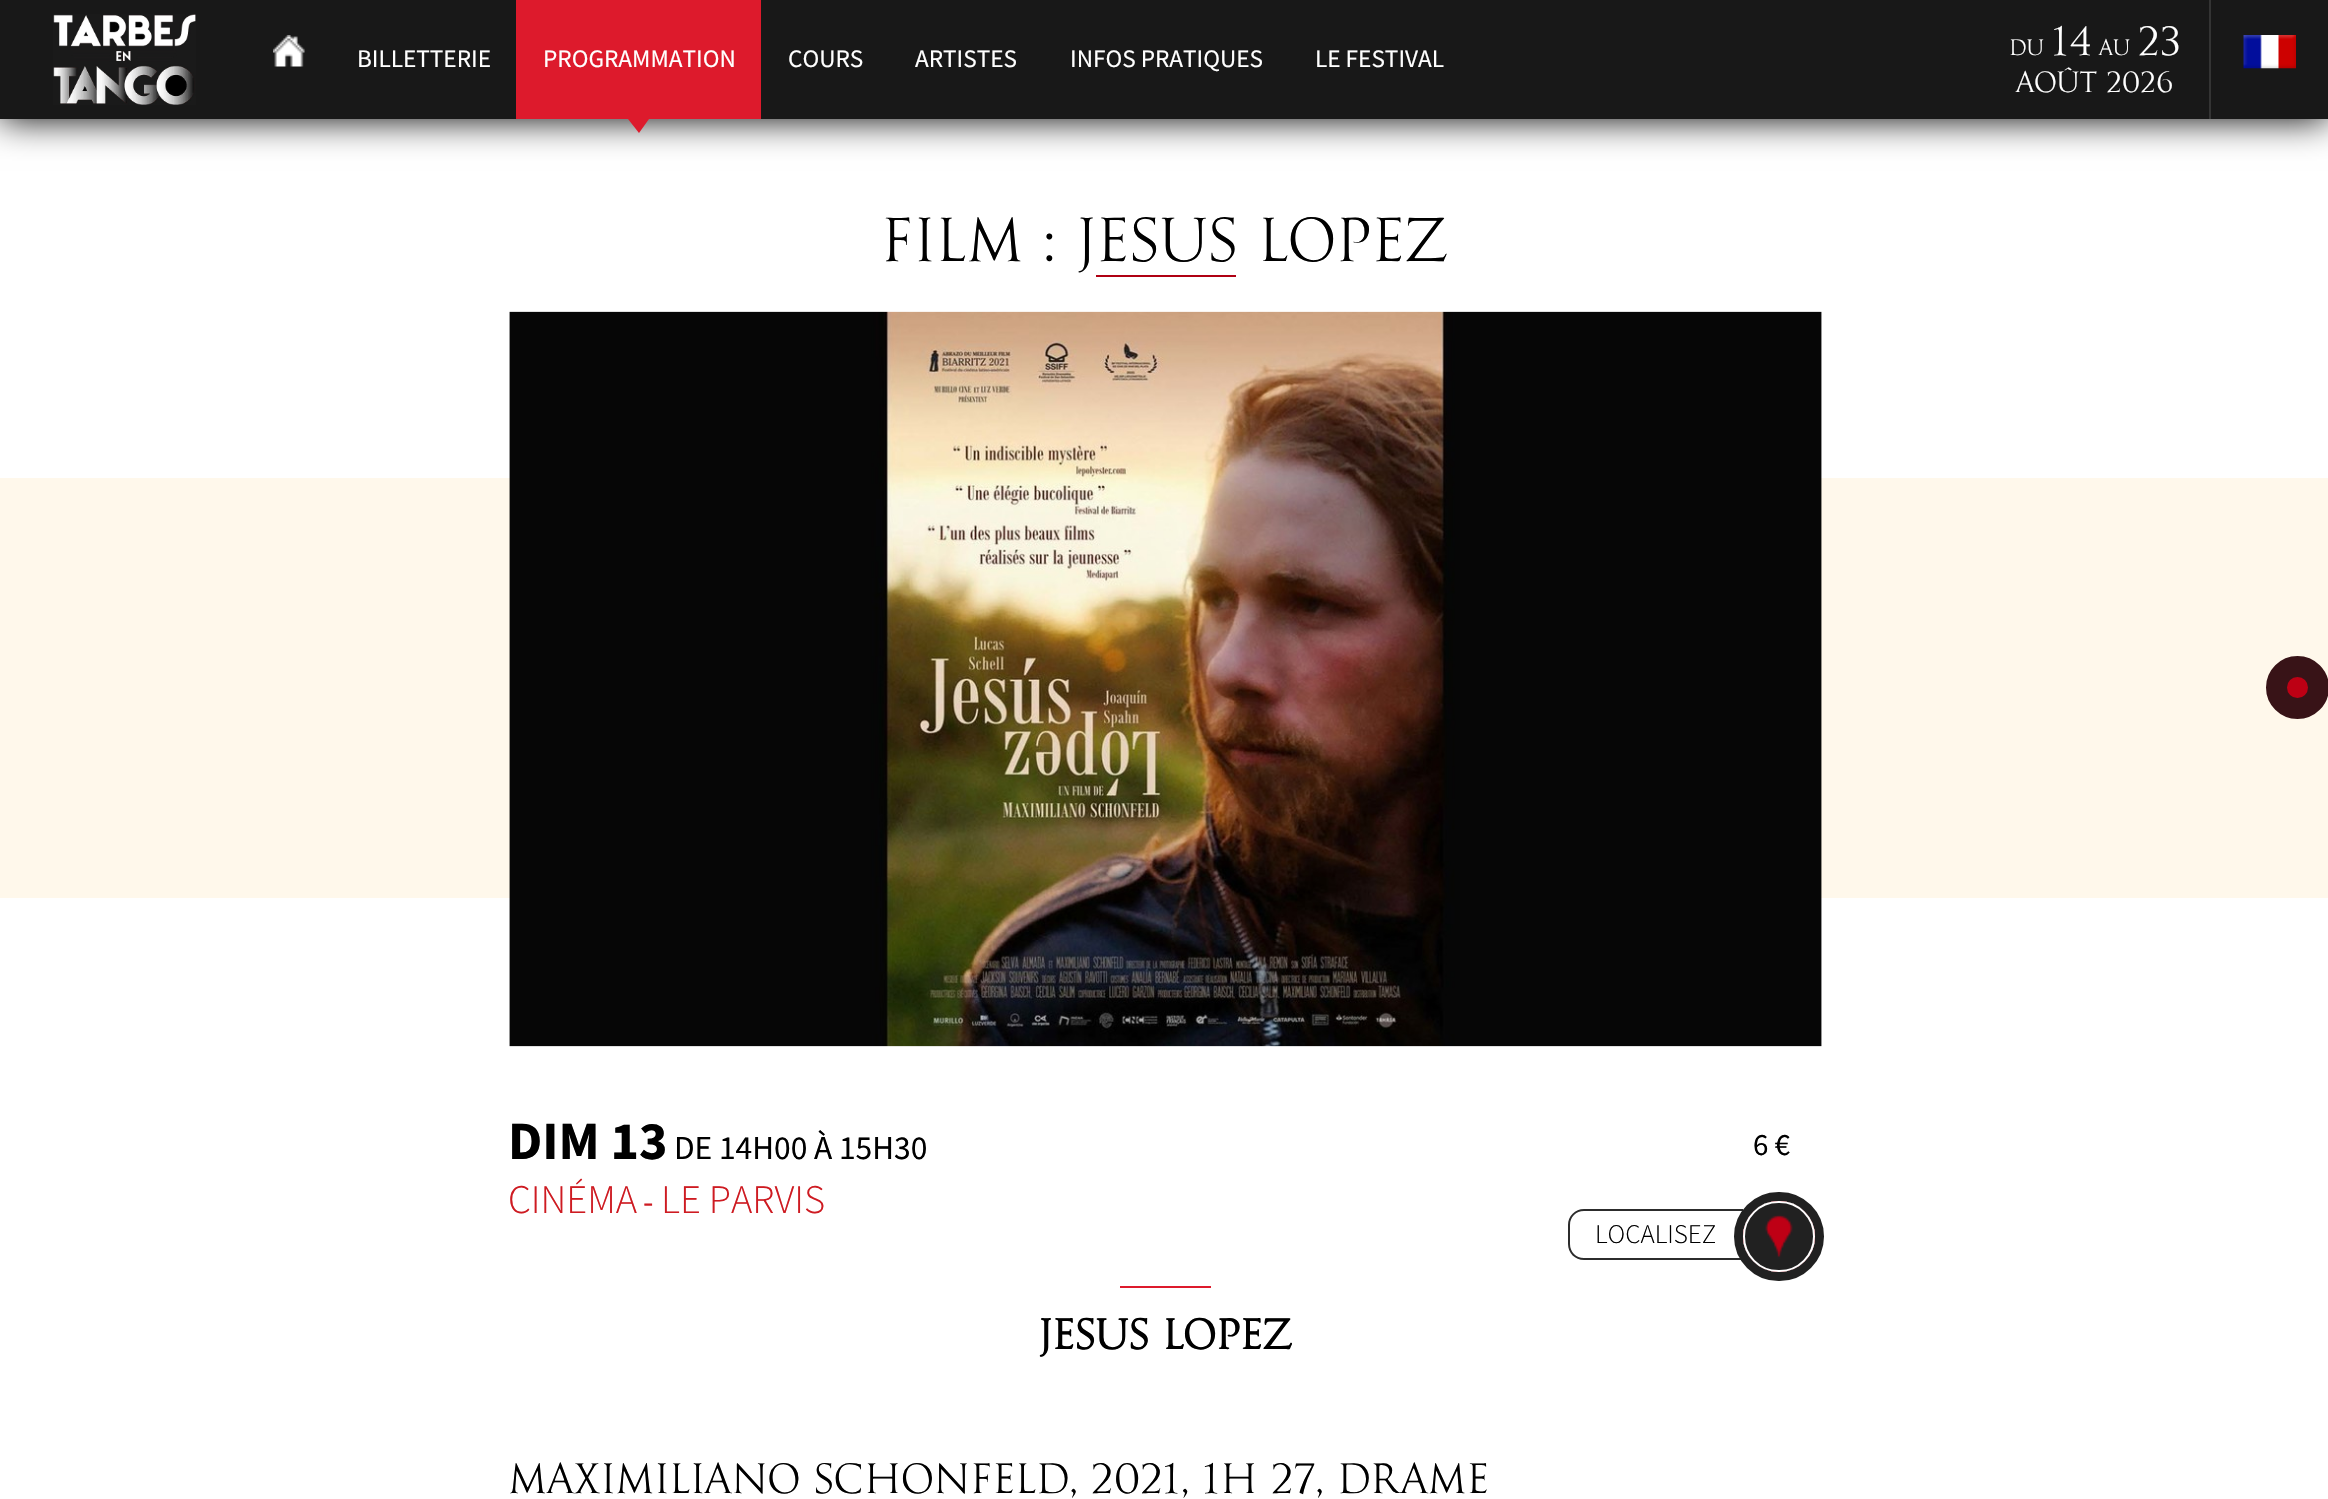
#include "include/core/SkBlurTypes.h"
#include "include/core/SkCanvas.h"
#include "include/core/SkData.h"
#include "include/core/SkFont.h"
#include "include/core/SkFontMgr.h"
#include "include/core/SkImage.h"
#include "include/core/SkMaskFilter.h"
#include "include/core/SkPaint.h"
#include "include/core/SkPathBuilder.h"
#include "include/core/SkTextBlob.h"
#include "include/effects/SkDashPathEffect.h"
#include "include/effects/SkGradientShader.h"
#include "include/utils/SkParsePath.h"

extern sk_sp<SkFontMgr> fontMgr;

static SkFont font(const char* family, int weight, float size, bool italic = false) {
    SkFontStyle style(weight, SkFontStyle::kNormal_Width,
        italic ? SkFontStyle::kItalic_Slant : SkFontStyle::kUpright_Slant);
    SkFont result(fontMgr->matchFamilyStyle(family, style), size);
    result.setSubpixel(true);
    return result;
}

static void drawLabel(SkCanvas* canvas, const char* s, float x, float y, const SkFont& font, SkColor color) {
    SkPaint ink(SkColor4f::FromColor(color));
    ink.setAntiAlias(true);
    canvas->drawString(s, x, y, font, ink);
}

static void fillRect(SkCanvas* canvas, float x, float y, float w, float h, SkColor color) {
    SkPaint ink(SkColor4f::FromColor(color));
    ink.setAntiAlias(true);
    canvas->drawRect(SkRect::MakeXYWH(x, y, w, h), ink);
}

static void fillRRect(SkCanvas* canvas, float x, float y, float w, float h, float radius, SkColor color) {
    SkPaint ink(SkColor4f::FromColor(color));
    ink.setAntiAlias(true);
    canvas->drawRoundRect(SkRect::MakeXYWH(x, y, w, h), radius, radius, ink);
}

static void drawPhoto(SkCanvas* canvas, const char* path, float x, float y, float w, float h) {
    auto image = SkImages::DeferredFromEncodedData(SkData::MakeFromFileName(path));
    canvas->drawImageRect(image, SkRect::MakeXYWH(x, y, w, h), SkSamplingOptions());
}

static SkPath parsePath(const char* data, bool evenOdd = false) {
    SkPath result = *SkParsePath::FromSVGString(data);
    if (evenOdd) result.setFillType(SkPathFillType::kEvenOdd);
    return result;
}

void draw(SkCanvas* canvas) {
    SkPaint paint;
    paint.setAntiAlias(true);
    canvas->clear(0xFFFFFFFF);
    paint.setColor(0xFF000000);
    paint.setMaskFilter(SkMaskFilter::MakeBlur(kNormal_SkBlurStyle, 17.5f));
    canvas->drawRect(SkRect::MakeXYWH(0, 0, 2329, 119), paint);
    paint.setMaskFilter(nullptr);
    fillRect(canvas, 0, 0, 2328, 119, 0xFF181818);
    drawPhoto(canvas, "assets/img1.png", 53, 14, 143, 91);
    drawPhoto(canvas, "assets/img2.png", 273, 35, 32, 32);
    SkFont font1 = font("Source Sans Pro", 400, 25.25f);
    drawLabel(canvas, "BILLETTERIE", 357, 67, font1, 0xFFFFFFFF);
    fillRect(canvas, 516, 0, 245, 119, 0xFFDD1A2C);
    drawLabel(canvas, "PROGRAMMATION", 543, 67, font1, 0xFFFFFFFF);
    paint.setColor(0xFFDD1A2C);
    canvas->drawPath(parsePath("M628 119H649L639 133Z"), paint);
    drawLabel(canvas, "COURS", 788, 67, font1, 0xFFFFFFFF);
    drawLabel(canvas, "ARTISTES", 915, 67, font1, 0xFFFFFFFF);
    drawLabel(canvas, "INFOS PRATIQUES", 1070, 67, font1, 0xFFFFFFFF);
    drawLabel(canvas, "LE FESTIVAL", 1315, 67, font1, 0xFFFFFFFF);
    SkFont font2 = font("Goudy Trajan", 400, 22);
    drawLabel(canvas, "du", 2009, 55, font2, 0xFFFFFFFF);
    SkFont font3 = font("Goudy Trajan", 400, 40.5f);
    drawLabel(canvas, "14", 2052, 55, font3, 0xFFFFFFFF);
    drawLabel(canvas, "au", 2099, 55, font2, 0xFFFFFFFF);
    drawLabel(canvas, "23", 2138, 55, font3, 0xFFFFFFFF);
    SkFont font4 = font("Goudy Trajan", 400, 29);
    drawLabel(canvas, "Août 2026", 2016, 92, font4, 0xFFFFFFFF);
    fillRect(canvas, 2209, 0, 2, 119, 0xFF343434);
    drawPhoto(canvas, "assets/img3.png", 2243, 35, 53, 34);
    SkFont font5 = font("Goudy Trajan", 400, 61.5f);
    drawLabel(canvas, "FILM : JESUS LOPEZ", 881, 261, font5, 0xFF000000);
    fillRect(canvas, 1096, 275, 140, 2, 0xFFAF0013);
    fillRect(canvas, 0, 478, 2328, 420, 0xFFFFF8EB);
    drawPhoto(canvas, "assets/img4.png", 509, 311, 1313, 736);
    paint.setColor(0xFFBD0014);
    canvas->drawCircle(2297.5f, 687.5f, 21, paint);
    paint.setStroke(true);
    paint.setStrokeWidth(21);
    paint.setColor(0xFF381317);
    canvas->drawCircle(2297.5f, 687.5f, 21, paint);
    SkFont font6 = font("Source Sans Pro", 700, 54);
    drawLabel(canvas, "DIM 13", 508, 1159, font6, 0xFF000000);
    SkFont font7 = font("Source Sans Pro", 400, 33.5f);
    drawLabel(canvas, "DE 14H00 À 15H30", 674, 1159, font7, 0xFF000000);
    SkFont font8 = font("Source Sans Pro", 400, 31);
    drawLabel(canvas, "6 €", 1753, 1155, font8, 0xFF000000);
    SkFont font9 = font("Source Sans Pro", 300, 40.5f);
    drawLabel(canvas, "CINÉMA", 508, 1213, font9, 0xFFCE1B22);
    drawLabel(canvas, "-", 643, 1213, font7, 0xFFCE1B22);
    drawLabel(canvas, "LE PARVIS", 661, 1213, font9, 0xFFCE1B22);
    paint.setStroke(false);
    paint.setColor(0xFF2C2C2C);
    canvas->drawPath(parsePath("M1584 1209H1743V1260H1584C1575 1260 1568 1253 1568 1244V1225C1568 1216 1575 1209 1584 1209ZM1584 1211H1743V1258H1584C1576 1258 1570 1252 1570 1244V1225C1570 1217 1576 1211 1584 1211Z", true), paint);
    SkFont font10 = font("Source Sans Pro", 300, 27);
    drawLabel(canvas, "LOCALISEZ", 1595, 1243, font10, 0xFF000000);
    paint.setStroke(true);
    paint.setStrokeWidth(9);
    paint.setColor(0xFF212121);
    canvas->drawRoundRect(SkRect::MakeXYWH(1738.5f, 1196.5f, 81, 80), 40, 40, paint);
    fillRRect(canvas, 1743, 1201, 72, 71, 35.5f, 0xFFBE0015);
    drawPhoto(canvas, "assets/img5.png", 1744, 1202, 69, 69);
    paint.setStrokeWidth(2);
    paint.setColor(0xFFFFFFFF);
    canvas->drawRoundRect(SkRect::MakeXYWH(1744, 1202, 70, 69), 34.5f, 34.5f, paint);
    fillRect(canvas, 1120, 1286, 91, 2, 0xFFDD1A2C);
    SkFont font11 = font("Goudy Trajan", 700, 42);
    drawLabel(canvas, "Jesus Lopez", 1038, 1349, font11, 0xFF000000);
    SkFont font12 = font("Goudy Trajan", 400, 42);
    drawLabel(canvas, "Maximiliano Schonfeld, 2021, 1h 27, drame", 508, 1493, font12, 0xFF000000);
}
